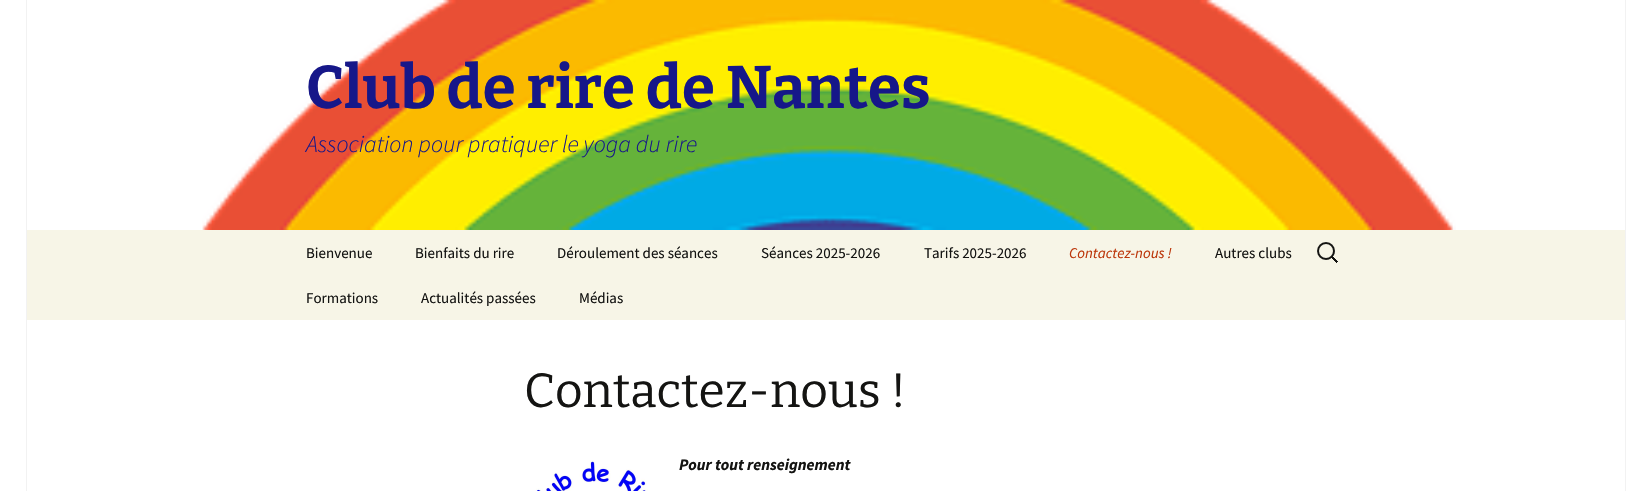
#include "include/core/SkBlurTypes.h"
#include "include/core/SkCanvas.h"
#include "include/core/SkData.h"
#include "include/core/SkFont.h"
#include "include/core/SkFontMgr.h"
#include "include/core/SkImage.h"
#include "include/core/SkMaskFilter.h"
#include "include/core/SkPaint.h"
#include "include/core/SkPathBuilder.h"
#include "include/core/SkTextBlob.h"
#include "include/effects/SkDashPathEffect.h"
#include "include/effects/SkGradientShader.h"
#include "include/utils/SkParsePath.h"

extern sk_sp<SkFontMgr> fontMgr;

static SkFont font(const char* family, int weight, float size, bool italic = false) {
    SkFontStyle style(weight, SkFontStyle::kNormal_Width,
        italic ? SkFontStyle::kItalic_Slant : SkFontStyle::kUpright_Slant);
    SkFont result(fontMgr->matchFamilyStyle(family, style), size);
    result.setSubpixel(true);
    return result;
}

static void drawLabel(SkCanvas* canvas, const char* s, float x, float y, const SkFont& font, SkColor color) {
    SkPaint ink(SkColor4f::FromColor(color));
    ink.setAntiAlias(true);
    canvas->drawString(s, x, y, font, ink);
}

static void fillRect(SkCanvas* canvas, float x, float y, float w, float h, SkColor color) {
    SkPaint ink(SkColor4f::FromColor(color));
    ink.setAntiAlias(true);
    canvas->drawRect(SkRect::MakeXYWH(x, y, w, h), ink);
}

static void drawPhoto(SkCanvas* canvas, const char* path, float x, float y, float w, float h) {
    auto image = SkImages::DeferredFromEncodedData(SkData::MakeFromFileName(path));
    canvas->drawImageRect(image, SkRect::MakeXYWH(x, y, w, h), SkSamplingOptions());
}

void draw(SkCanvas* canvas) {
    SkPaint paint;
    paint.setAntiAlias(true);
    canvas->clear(0xFFFFFFFF);
    fillRect(canvas, 1625, 0, 1, 491, 0xFFF2F2F2);
    fillRect(canvas, 26, 0, 1, 491, 0xFFF2F2F2);
    drawPhoto(canvas, "assets/img1.png", 202, 0, 1254, 230);
    SkFont font1 = font("Bitter", 700, 60);
    drawLabel(canvas, "Club de rire de Nantes", 306, 108, font1, 0xFF161789);
    SkFont font2 = font("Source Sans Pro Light", 300, 24, true);
    drawLabel(canvas, "Association pour pratiquer le yoga du rire", 306, 152, font2, 0xFF161789);
    fillRect(canvas, 27, 230, 1598, 90, 0xFFF7F5E7);
    SkFont font3 = font("Source Sans Pro", 400, 15);
    drawLabel(canvas, "Bienvenue", 306, 258, font3, 0xFF141412);
    drawLabel(canvas, "Bienfaits du rire", 415, 258, font3, 0xFF141412);
    drawLabel(canvas, "Déroulement des séances", 557, 258, font3, 0xFF141412);
    drawLabel(canvas, "Séances 2025-2026", 761, 258, font3, 0xFF141412);
    drawLabel(canvas, "Tarifs 2025-2026", 924, 258, font3, 0xFF141412);
    SkFont font4 = font("Source Sans Pro", 400, 15, true);
    drawLabel(canvas, "Contactez-nous !", 1069, 258, font4, 0xFFBC360A);
    drawLabel(canvas, "Autres clubs", 1215, 258, font3, 0xFF141412);
    drawLabel(canvas, "Formations", 306, 303, font3, 0xFF141412);
    drawLabel(canvas, "Actualités passées", 421, 303, font3, 0xFF141412);
    drawLabel(canvas, "Médias", 579, 303, font3, 0xFF141412);
    drawPhoto(canvas, "assets/img2.png", 1317, 242, 21, 21);
    SkFont font5 = font("Bitter", 400, 48);
    drawLabel(canvas, "Contactez-nous !", 524, 407, font5, 0xFF141412);
    drawPhoto(canvas, "assets/img3.png", 536, 460, 112, 31);
    SkFont font6 = font("Source Sans Pro", 700, 16, true);
    drawLabel(canvas, "Pour tout renseignement", 679, 470, font6, 0xFF141412);
}
